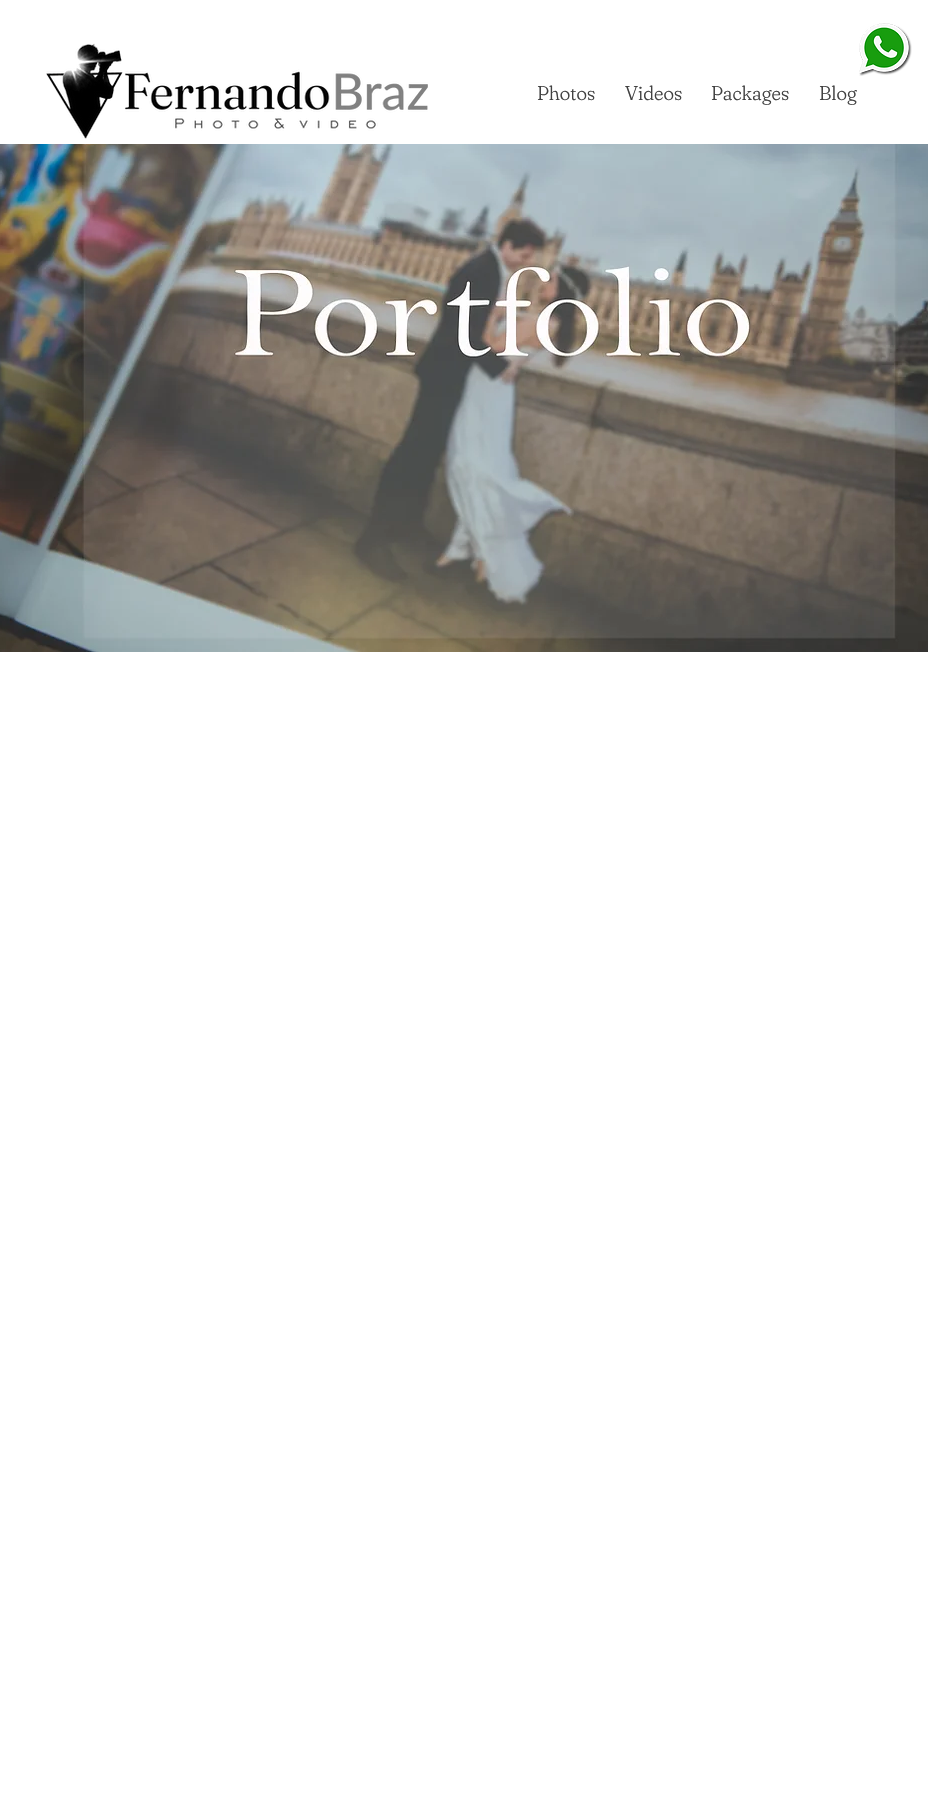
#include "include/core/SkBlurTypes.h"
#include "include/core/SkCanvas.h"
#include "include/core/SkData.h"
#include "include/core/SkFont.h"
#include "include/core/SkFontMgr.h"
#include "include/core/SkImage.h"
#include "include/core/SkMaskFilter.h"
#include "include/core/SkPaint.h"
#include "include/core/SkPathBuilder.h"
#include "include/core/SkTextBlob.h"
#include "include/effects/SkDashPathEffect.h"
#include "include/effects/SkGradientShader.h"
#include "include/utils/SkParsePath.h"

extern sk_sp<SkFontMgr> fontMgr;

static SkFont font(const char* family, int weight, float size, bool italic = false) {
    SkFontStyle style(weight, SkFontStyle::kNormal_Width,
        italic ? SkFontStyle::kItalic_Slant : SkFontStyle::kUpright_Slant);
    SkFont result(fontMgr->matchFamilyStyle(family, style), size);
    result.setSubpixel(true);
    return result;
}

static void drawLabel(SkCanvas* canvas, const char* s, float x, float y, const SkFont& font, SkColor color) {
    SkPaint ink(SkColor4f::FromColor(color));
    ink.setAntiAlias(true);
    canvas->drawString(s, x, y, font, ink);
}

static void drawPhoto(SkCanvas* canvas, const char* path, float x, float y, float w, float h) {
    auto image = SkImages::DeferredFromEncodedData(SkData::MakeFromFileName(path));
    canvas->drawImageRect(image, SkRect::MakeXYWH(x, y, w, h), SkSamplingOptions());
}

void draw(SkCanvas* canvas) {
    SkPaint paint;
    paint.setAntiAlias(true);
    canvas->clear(0xFFFFFFFF);
    drawPhoto(canvas, "assets/img1.png", 859, 23, 53, 53);
    drawPhoto(canvas, "assets/img2.png", 46, 43, 382, 96);
    SkFont font1 = font("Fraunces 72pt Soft", 300, 20);
    drawLabel(canvas, "Photos", 537, 100, font1, 0xFF414141);
    drawLabel(canvas, "Videos", 625, 100, font1, 0xFF414141);
    drawLabel(canvas, "Packages", 711, 100, font1, 0xFF414141);
    drawLabel(canvas, "Blog", 819, 100, font1, 0xFF414141);
    drawPhoto(canvas, "assets/img3.png", 0, 144, 928, 508);
}
